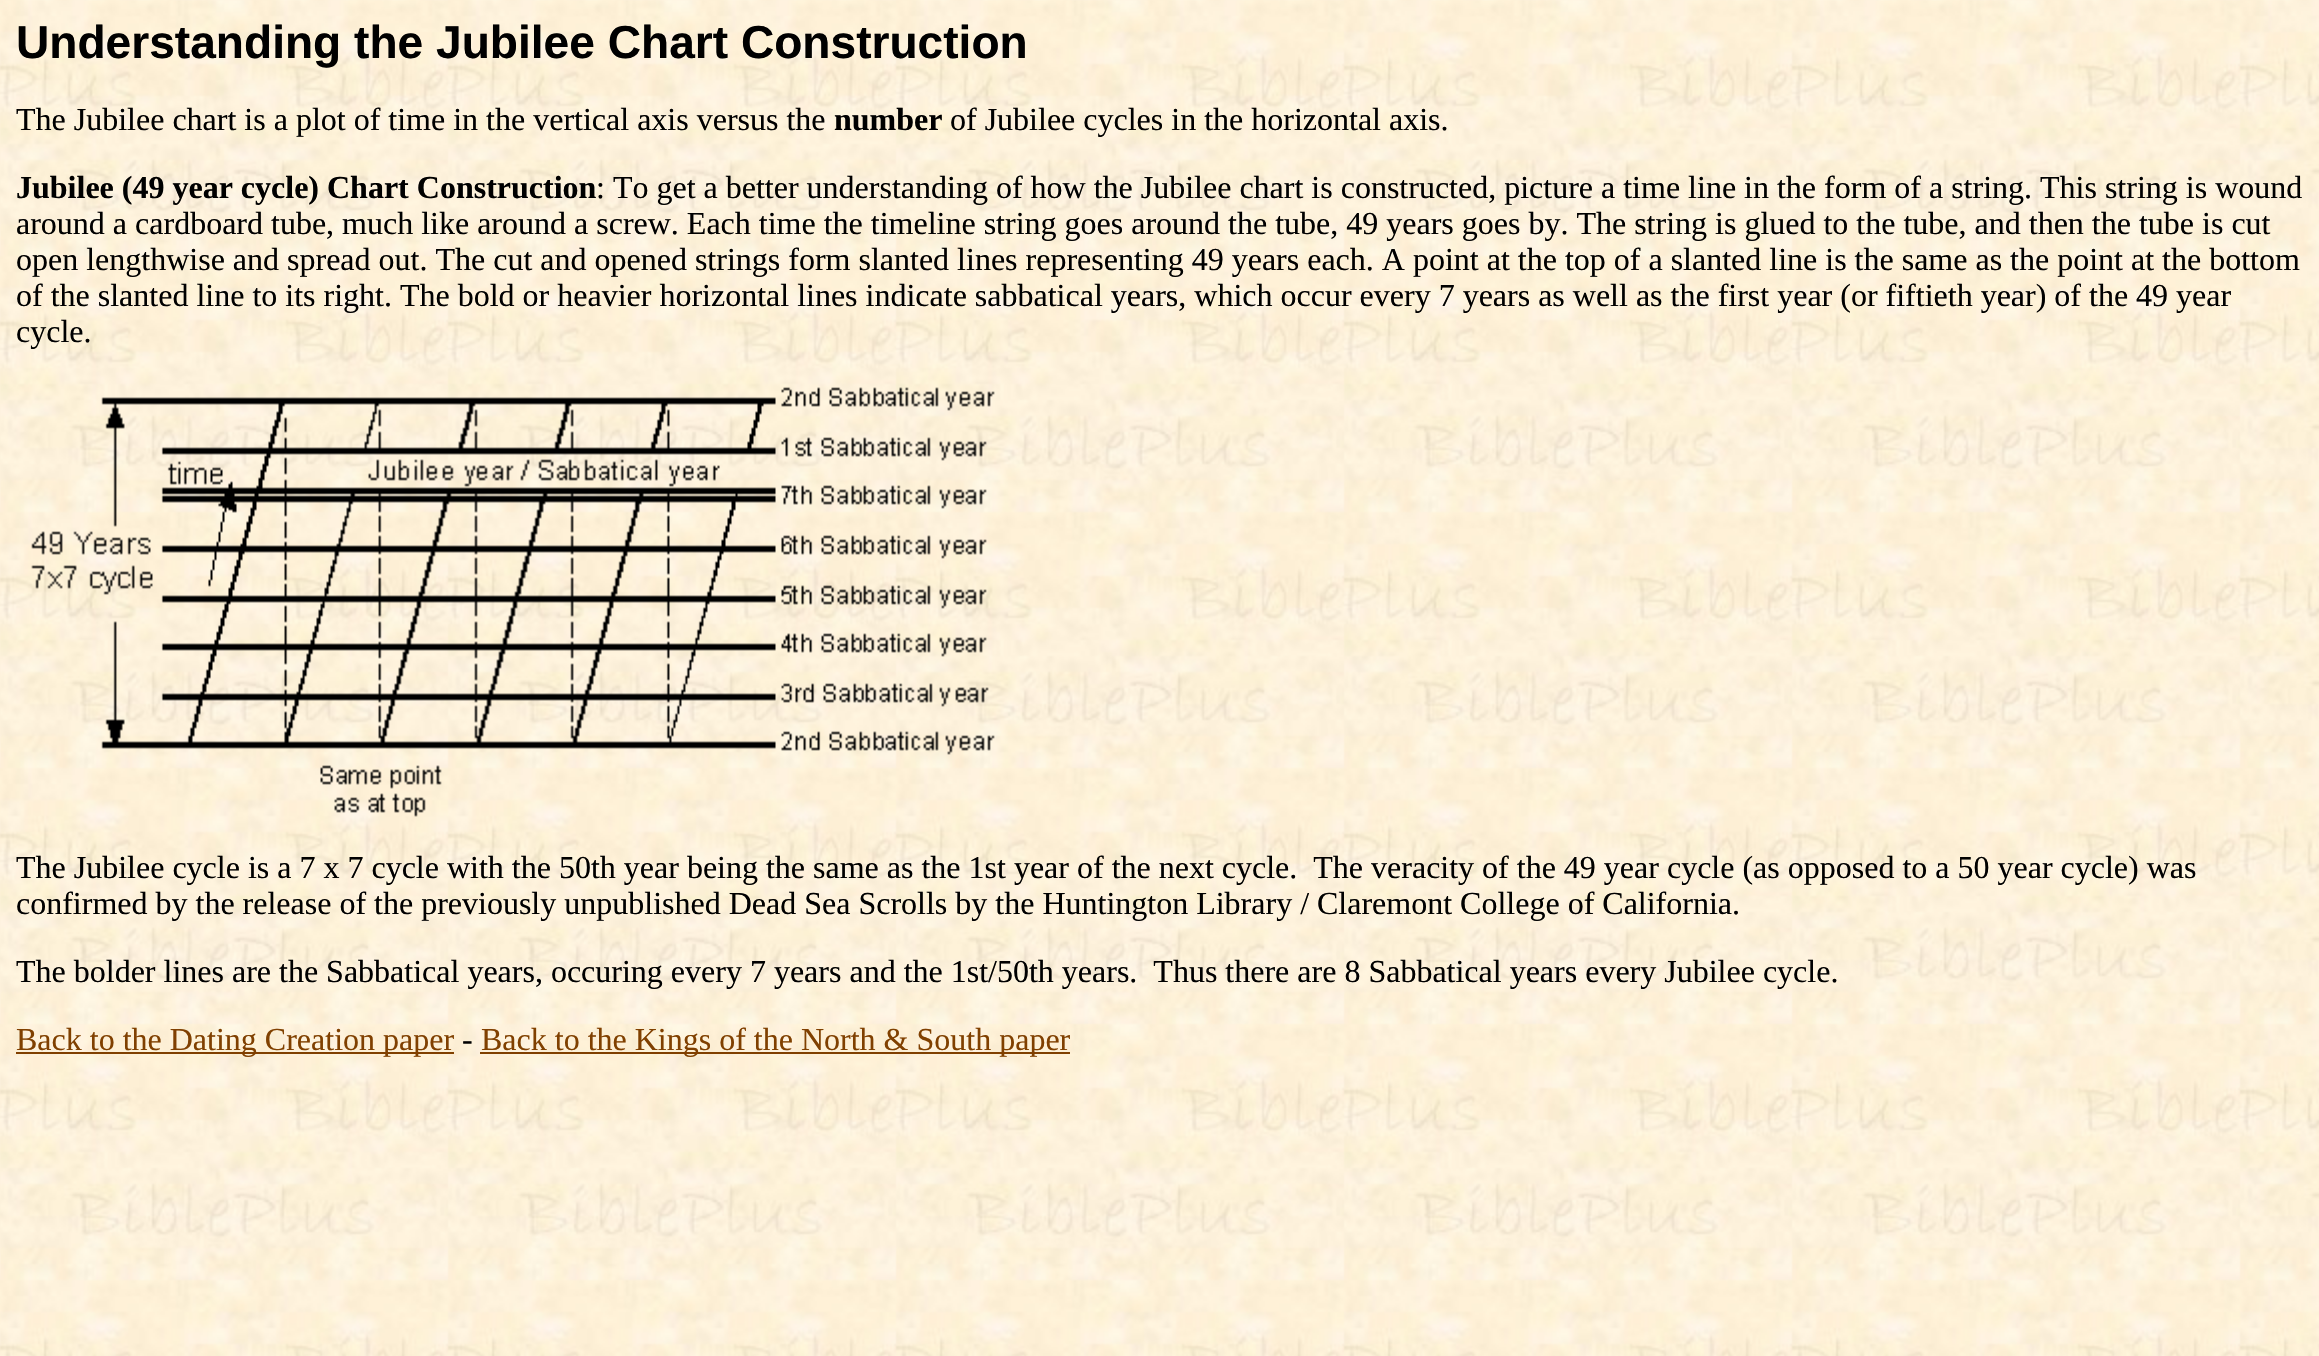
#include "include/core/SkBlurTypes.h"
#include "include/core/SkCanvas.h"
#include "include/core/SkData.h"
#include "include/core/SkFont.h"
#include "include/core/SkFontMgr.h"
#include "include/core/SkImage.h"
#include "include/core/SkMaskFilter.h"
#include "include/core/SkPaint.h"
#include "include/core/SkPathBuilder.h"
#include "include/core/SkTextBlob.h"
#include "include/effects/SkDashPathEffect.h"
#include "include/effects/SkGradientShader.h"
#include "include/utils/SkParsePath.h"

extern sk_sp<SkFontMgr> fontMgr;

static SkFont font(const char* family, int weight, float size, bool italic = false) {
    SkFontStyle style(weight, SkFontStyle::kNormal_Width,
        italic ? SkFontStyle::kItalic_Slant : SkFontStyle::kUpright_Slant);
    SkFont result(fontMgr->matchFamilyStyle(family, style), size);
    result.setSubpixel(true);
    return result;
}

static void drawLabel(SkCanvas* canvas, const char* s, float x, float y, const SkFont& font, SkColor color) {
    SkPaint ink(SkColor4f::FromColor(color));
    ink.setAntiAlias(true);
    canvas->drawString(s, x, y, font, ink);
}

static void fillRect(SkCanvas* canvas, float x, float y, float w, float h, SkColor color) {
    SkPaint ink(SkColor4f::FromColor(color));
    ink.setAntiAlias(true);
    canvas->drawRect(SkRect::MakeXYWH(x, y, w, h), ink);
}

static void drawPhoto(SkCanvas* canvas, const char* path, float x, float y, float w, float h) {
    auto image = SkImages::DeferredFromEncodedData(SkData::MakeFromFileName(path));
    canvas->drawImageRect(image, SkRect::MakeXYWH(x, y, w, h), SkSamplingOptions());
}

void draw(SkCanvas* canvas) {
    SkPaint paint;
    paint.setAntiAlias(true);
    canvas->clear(0xFFFFFFFF);
    drawPhoto(canvas, "assets/img1.png", 0, 0, 2319, 1356);
    SkFont font1 = font("Liberation Sans", 700, 46.1f);
    drawLabel(canvas, "Understanding the Jubilee Chart Construction", 16, 58, font1, 0xFF000000);
    SkFont font2 = font("Liberation Serif", 400, 32);
    drawLabel(canvas, "The Jubilee chart is a plot of time in the vertical axis versus the", 16, 130, font2, 0xFF000000);
    SkFont font3 = font("Liberation Serif", 700, 32);
    drawLabel(canvas, "number", 834, 130, font3, 0xFF000000);
    drawLabel(canvas, "of Jubilee cycles in the horizontal axis.", 950, 130, font2, 0xFF000000);
    drawLabel(canvas, "Jubilee (49 year cycle) Chart Construction", 16, 198, font3, 0xFF000000);
    drawLabel(canvas, ": To get a better understanding of how the Jubilee chart is constructed, picture a time line in the form of a string. This string is wound", 596, 198, font2, 0xFF000000);
    drawLabel(canvas, "around a cardboard tube, much like around a screw. Each time the timeline string goes around the tube, 49 years goes by. The string is glued to the tube, and then the tube is cut", 16, 234, font2, 0xFF000000);
    drawLabel(canvas, "open lengthwise and spread out. The cut and opened strings form slanted lines representing 49 years each. A point at the top of a slanted line is the same as the point at the bottom", 16, 270, font2, 0xFF000000);
    drawLabel(canvas, "of the slanted line to its right. The bold or heavier horizontal lines indicate sabbatical years, which occur every 7 years as well as the first year (or fiftieth year) of the 49 year", 16, 306, font2, 0xFF000000);
    drawLabel(canvas, "cycle.", 16, 342, font2, 0xFF000000);
    drawPhoto(canvas, "assets/img2.png", 31, 387, 964, 430);
    drawLabel(canvas, "The Jubilee cycle is a 7 x 7 cycle with the 50th year being the same as the 1st year of the next cycle.  The veracity of the 49 year cycle (as opposed to a 50 year cycle) was", 16, 878, font2, 0xFF000000);
    drawLabel(canvas, "confirmed by the release of the previously unpublished Dead Sea Scrolls by the Huntington Library / Claremont College of California.", 16, 914, font2, 0xFF000000);
    drawLabel(canvas, "The bolder lines are the Sabbatical years, occuring every 7 years and the 1st/50th years.  Thus there are 8 Sabbatical years every Jubilee cycle.", 16, 982, font2, 0xFF000000);
    fillRect(canvas, 16, 1052, 438, 2, 0xFF804000);
    drawLabel(canvas, "Back to the Dating Creation paper", 16, 1050, font2, 0xFF804000);
    drawLabel(canvas, "-", 462, 1050, font2, 0xFF000000);
    fillRect(canvas, 480, 1052, 590, 2, 0xFF804000);
    drawLabel(canvas, "Back to the Kings of the North & South paper", 481, 1050, font2, 0xFF804000);
}
